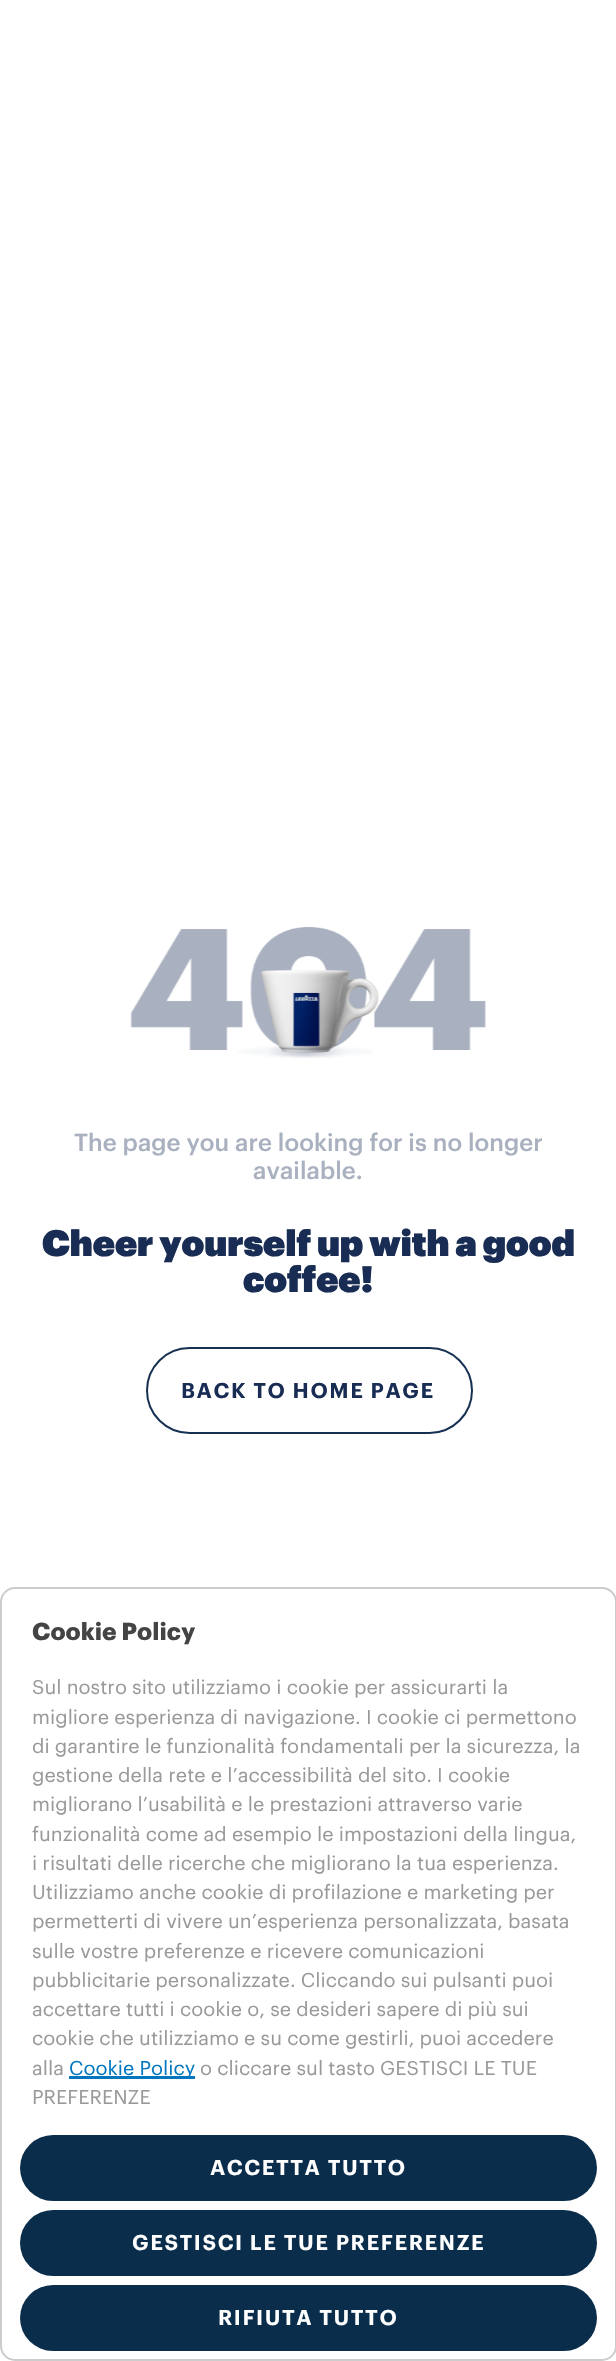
#include "include/core/SkBlurTypes.h"
#include "include/core/SkCanvas.h"
#include "include/core/SkData.h"
#include "include/core/SkFont.h"
#include "include/core/SkFontMgr.h"
#include "include/core/SkImage.h"
#include "include/core/SkMaskFilter.h"
#include "include/core/SkPaint.h"
#include "include/core/SkPathBuilder.h"
#include "include/core/SkTextBlob.h"
#include "include/effects/SkDashPathEffect.h"
#include "include/effects/SkGradientShader.h"
#include "include/utils/SkParsePath.h"

extern sk_sp<SkFontMgr> fontMgr;

static SkFont font(const char* family, int weight, float size, bool italic = false) {
    SkFontStyle style(weight, SkFontStyle::kNormal_Width,
        italic ? SkFontStyle::kItalic_Slant : SkFontStyle::kUpright_Slant);
    SkFont result(fontMgr->matchFamilyStyle(family, style), size);
    result.setSubpixel(true);
    return result;
}

static void drawLabel(SkCanvas* canvas, const char* s, float x, float y, const SkFont& font, SkColor color) {
    SkPaint ink(SkColor4f::FromColor(color));
    ink.setAntiAlias(true);
    canvas->drawString(s, x, y, font, ink);
}

static void drawTracked(SkCanvas* canvas, const char* s, float x, float y, const SkFont& font, const SkPaint& ink, float letter, float word) {
    std::vector<SkGlyphID> glyphs(font.countText(s, strlen(s), SkTextEncoding::kUTF8));
    std::vector<float> xs(glyphs.size());
    font.textToGlyphs(s, strlen(s), SkTextEncoding::kUTF8, glyphs);
    font.getXPos(glyphs, xs, x);
    float extra = 0;
    for (size_t i = 0; i < glyphs.size(); i++) {
        xs[i] += extra;
        extra += letter + word * (glyphs[i] == font.unicharToGlyph(' '));
    }
    canvas->drawTextBlob(SkTextBlob::MakeFromPosHGlyphs(glyphs, xs, y, font), 0, 0, ink);
}

static void fillRect(SkCanvas* canvas, float x, float y, float w, float h, SkColor color) {
    SkPaint ink(SkColor4f::FromColor(color));
    ink.setAntiAlias(true);
    canvas->drawRect(SkRect::MakeXYWH(x, y, w, h), ink);
}

static void fillRRect(SkCanvas* canvas, float x, float y, float w, float h, float radius, SkColor color) {
    SkPaint ink(SkColor4f::FromColor(color));
    ink.setAntiAlias(true);
    canvas->drawRoundRect(SkRect::MakeXYWH(x, y, w, h), radius, radius, ink);
}

static void drawPhoto(SkCanvas* canvas, const char* path, float x, float y, float w, float h) {
    auto image = SkImages::DeferredFromEncodedData(SkData::MakeFromFileName(path));
    canvas->drawImageRect(image, SkRect::MakeXYWH(x, y, w, h), SkSamplingOptions());
}

void draw(SkCanvas* canvas) {
    SkPaint paint;
    paint.setAntiAlias(true);
    canvas->clear(0xFFFFFFFF);
    drawPhoto(canvas, "assets/img1.png", 130, 927, 356, 132);
    SkFont font1 = font("Graphik", 500, 24);
    drawLabel(canvas, "The page you are looking for is no longer", 74, 1151, font1, 0xFFA9B0BF);
    drawLabel(canvas, "available.", 253, 1179, font1, 0xFFA9B0BF);
    SkFont font2 = font("Graphik", 900, 36);
    drawLabel(canvas, "Cheer yourself up with a good", 42, 1256, font2, 0xFF182C54);
    drawLabel(canvas, "coffee!", 243, 1292, font2, 0xFF182C54);
    paint.setStroke(true);
    paint.setStrokeWidth(2);
    paint.setColor(0xFF163052);
    canvas->drawRoundRect(SkRect::MakeXYWH(147, 1348, 325, 85), 42.5f, 42.5f, paint);
    SkFont font3 = font("Graphik", 600, 21);
    paint.setStroke(false);
    paint.setColor(0xFF182C54);
    drawTracked(canvas, "BACK TO HOME PAGE", 181, 1398, font3, paint, 1.5f, 0);
    paint.setStroke(true);
    paint.setColor(0xFFCCCCCC);
    canvas->drawRoundRect(SkRect::MakeXYWH(1, 1588, 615, 772), 14, 14, paint);
    SkFont font4 = font("Graphik", 700, 24);
    drawLabel(canvas, "Cookie Policy", 32, 1640, font4, 0xFF444444);
    SkFont font5 = font("Graphik", 400, 19.5f);
    drawLabel(canvas, "Sul nostro sito utilizziamo i cookie per assicurarti la", 32, 1694, font5, 0xFF999999);
    drawLabel(canvas, "migliore esperienza di navigazione. I cookie ci permettono", 32, 1724, font5, 0xFF999999);
    drawLabel(canvas, "di garantire le funzionalità fondamentali per la sicurezza, la", 32, 1753, font5, 0xFF999999);
    drawLabel(canvas, "gestione della rete e l’accessibilità del sito. I cookie", 32, 1782, font5, 0xFF999999);
    drawLabel(canvas, "migliorano l’usabilità e le prestazioni attraverso varie", 32, 1811, font5, 0xFF999999);
    drawLabel(canvas, "funzionalità come ad esempio le impostazioni della lingua,", 32, 1841, font5, 0xFF999999);
    drawLabel(canvas, "i risultati delle ricerche che migliorano la tua esperienza.", 32, 1870, font5, 0xFF999999);
    drawLabel(canvas, "Utilizziamo anche cookie di profilazione e marketing per", 32, 1899, font5, 0xFF999999);
    drawLabel(canvas, "permetterti di vivere un’esperienza personalizzata, basata", 32, 1928, font5, 0xFF999999);
    drawLabel(canvas, "sulle vostre preferenze e ricevere comunicazioni", 32, 1958, font5, 0xFF999999);
    drawLabel(canvas, "pubblicitarie personalizzate. Cliccando sui pulsanti puoi", 32, 1987, font5, 0xFF999999);
    drawLabel(canvas, "accettare tutti i cookie o, se desideri sapere di più sui", 32, 2016, font5, 0xFF999999);
    drawLabel(canvas, "cookie che utilizziamo e su come gestirli, puoi accedere", 32, 2045, font5, 0xFF999999);
    drawLabel(canvas, "alla", 32, 2075, font5, 0xFF999999);
    fillRect(canvas, 69, 2076, 126, 3, 0xFF0077BF);
    drawLabel(canvas, "Cookie Policy", 69, 2075, font5, 0xFF0077BF);
    drawLabel(canvas, "o cliccare sul tasto GESTISCI LE TUE", 200, 2075, font5, 0xFF999999);
    drawLabel(canvas, "PREFERENZE", 32, 2104, font5, 0xFF999999);
    fillRRect(canvas, 20, 2135, 577, 66, 33, 0xFF0A2D4B);
    paint.setStroke(false);
    paint.setColor(0xFFFFFFFF);
    drawTracked(canvas, "ACCETTA TUTTO", 210, 2175, font3, paint, 1.5f, 0);
    fillRRect(canvas, 20, 2210, 577, 66, 33, 0xFF0A2D4B);
    drawTracked(canvas, "GESTISCI LE TUE PREFERENZE", 132, 2250, font3, paint, 1.5f, 0);
    fillRRect(canvas, 20, 2285, 577, 66, 33, 0xFF0A2D4B);
    drawTracked(canvas, "RIFIUTA TUTTO", 218, 2325, font3, paint, 1.5f, 0);
}
